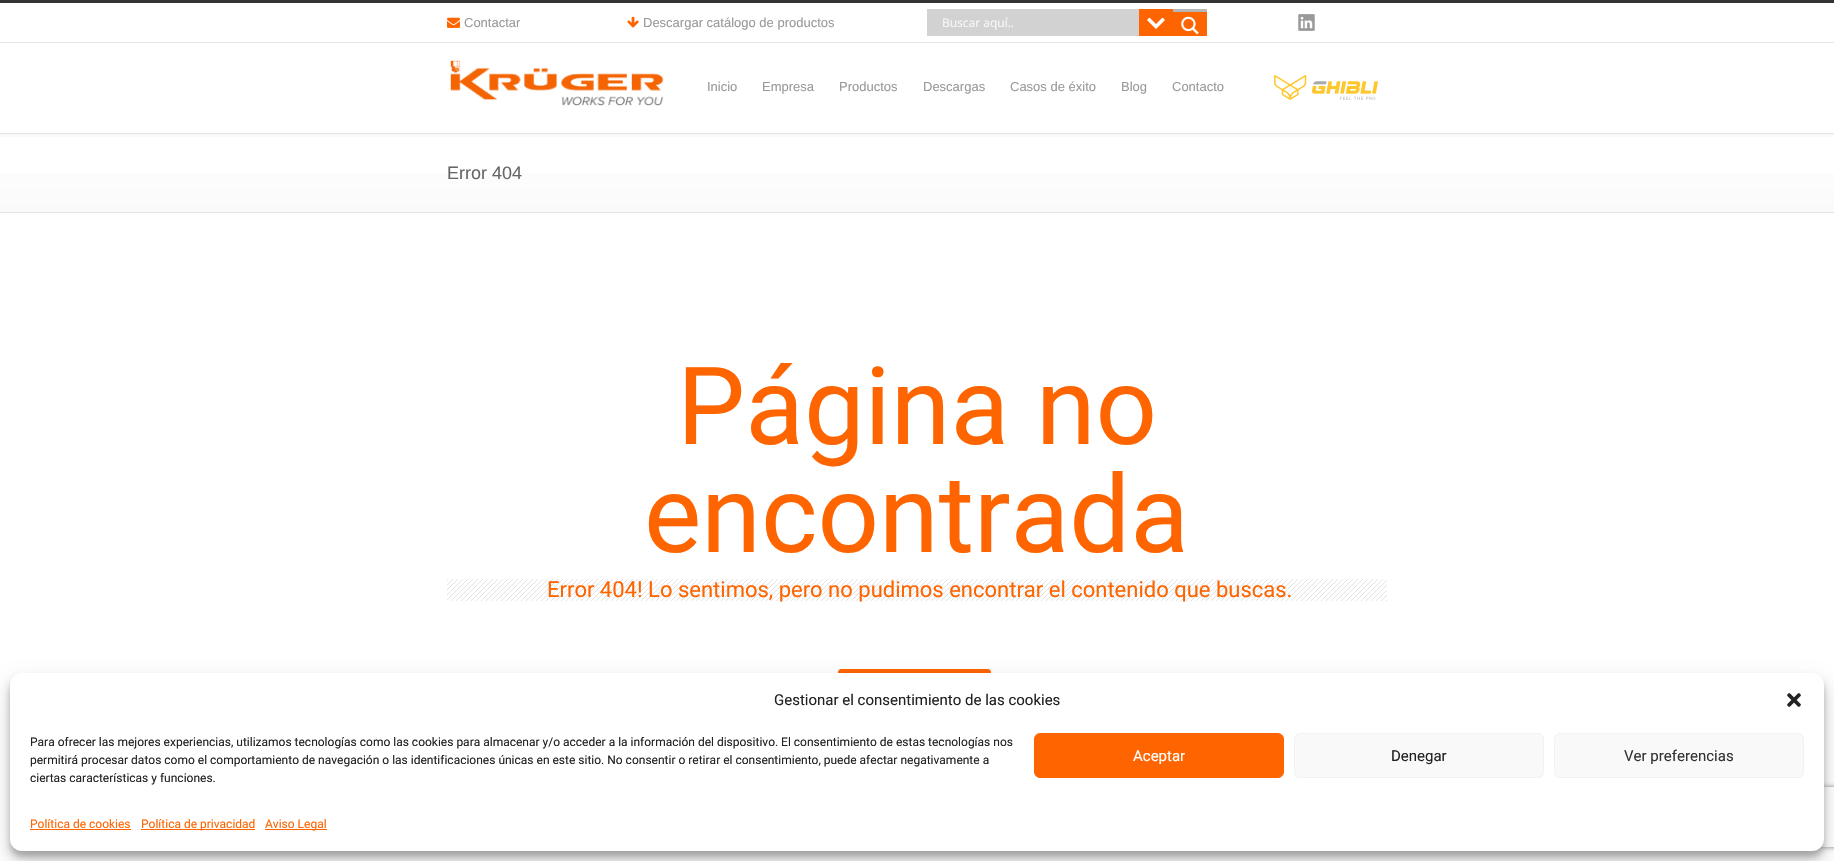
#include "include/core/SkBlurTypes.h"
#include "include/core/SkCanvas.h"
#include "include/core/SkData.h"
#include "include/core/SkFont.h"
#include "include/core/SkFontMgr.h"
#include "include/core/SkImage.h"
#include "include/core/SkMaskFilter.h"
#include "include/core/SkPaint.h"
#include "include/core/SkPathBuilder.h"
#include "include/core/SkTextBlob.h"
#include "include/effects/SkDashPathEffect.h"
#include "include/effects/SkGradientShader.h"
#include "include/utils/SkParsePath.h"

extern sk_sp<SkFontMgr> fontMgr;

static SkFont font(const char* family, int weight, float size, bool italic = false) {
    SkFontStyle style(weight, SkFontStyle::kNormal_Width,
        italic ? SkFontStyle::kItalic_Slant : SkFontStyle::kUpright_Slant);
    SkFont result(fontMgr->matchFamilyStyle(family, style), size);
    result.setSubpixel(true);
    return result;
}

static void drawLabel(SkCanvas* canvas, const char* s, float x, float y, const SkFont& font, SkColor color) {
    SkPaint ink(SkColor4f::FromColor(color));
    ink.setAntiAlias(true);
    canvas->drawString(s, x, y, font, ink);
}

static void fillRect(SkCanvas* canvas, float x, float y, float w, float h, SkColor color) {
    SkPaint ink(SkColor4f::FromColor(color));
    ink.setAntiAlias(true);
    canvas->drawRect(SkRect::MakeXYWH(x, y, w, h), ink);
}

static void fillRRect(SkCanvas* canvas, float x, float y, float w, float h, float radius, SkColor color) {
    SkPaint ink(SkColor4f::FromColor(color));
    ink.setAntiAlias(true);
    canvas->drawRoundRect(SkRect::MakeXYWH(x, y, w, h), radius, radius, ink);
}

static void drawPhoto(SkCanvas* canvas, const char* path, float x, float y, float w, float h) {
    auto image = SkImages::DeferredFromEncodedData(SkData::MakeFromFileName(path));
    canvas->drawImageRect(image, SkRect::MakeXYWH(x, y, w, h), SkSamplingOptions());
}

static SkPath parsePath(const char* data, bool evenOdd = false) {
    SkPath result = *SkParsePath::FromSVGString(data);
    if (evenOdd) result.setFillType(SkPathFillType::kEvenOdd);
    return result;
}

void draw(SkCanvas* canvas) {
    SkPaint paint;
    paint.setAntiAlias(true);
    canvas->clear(0xFFFFFFFF);
    fillRect(canvas, 0, 0, 1834, 3, 0xFF333333);
    fillRect(canvas, 0, 42, 1834, 1, 0xFFE4E4E4);
    drawPhoto(canvas, "assets/img1.png", 447, 17, 13, 11);
    SkFont font1 = font("Liberation Sans", 400, 13);
    drawLabel(canvas, "Contactar", 464, 27, font1, 0xFF999999);
    drawPhoto(canvas, "assets/img2.png", 627, 16, 12, 12);
    drawLabel(canvas, "Descargar catálogo de productos", 643, 27, font1, 0xFF999999);
    fillRect(canvas, 927, 9, 212, 27, 0xFFD2D2D2);
    SkFont font2 = font("Open Sans", 400, 12);
    drawLabel(canvas, "Buscar aquí..", 942, 27, font2, 0xFFF8F8F8);
    fillRect(canvas, 1139, 9, 34, 27, 0xFFFE6500);
    paint.setColor(0xFFFFFFFF);
    canvas->drawPath(parsePath("M1162.5 17.5L1165 20L1156 29L1147 20L1149.5 17.5L1156 24Z"), paint);
    fillRect(canvas, 1173, 9, 34, 3, 0xFFB6B6B6);
    fillRect(canvas, 1173, 12, 34, 24, 0xFFFE6500);
    drawPhoto(canvas, "assets/img3.png", 1181, 16, 18, 19);
    drawPhoto(canvas, "assets/img4.png", 1298, 14, 17, 17);
    drawPhoto(canvas, "assets/img5.png", 450, 60, 214, 46);
    drawLabel(canvas, "Inicio", 707, 91, font1, 0xFF999999);
    drawLabel(canvas, "Empresa", 762, 91, font1, 0xFF999999);
    drawLabel(canvas, "Productos", 839, 91, font1, 0xFF999999);
    drawLabel(canvas, "Descargas", 923, 91, font1, 0xFF999999);
    drawLabel(canvas, "Casos de éxito", 1010, 91, font1, 0xFF999999);
    drawLabel(canvas, "Blog", 1121, 91, font1, 0xFF999999);
    drawLabel(canvas, "Contacto", 1172, 91, font1, 0xFF999999);
    drawPhoto(canvas, "assets/img6.png", 1274, 75, 104, 25);
    {
        const SkColor colors[] = {0xFFFAFAFA, 0xFFFFFFFF};
        const float stops[] = {0, 1};
        const SkPoint ends[] = {{917, 212}, {917, 134}};
        paint.setShader(SkGradientShader::MakeLinear(ends, colors, stops, 2, SkTileMode::kClamp));
        paint.setAlpha(255);
    }
    canvas->drawRect(SkRect::MakeXYWH(0, 173, 1834, 39), paint);
    fillRect(canvas, 0, 134, 1834, 3, 0xFFFAFAFA);
    fillRect(canvas, 0, 133, 1834, 1, 0xFFE4E4E4);
    fillRect(canvas, 0, 212, 1834, 1, 0xFFE4E4E4);
    SkFont font3 = font("Liberation Sans", 400, 18);
    drawLabel(canvas, "Error 404", 447, 179, font3, 0xFF666666);
    SkFont font4 = font("Roboto", 400, 108);
    drawLabel(canvas, "Página no", 677, 444, font4, 0xFFFE6500);
    drawLabel(canvas, "encontrada", 644, 552, font4, 0xFFFE6500);
    drawPhoto(canvas, "assets/img7.png", 447, 579, 940, 22);
    SkFont font5 = font("Roboto", 400, 22);
    drawLabel(canvas, "Error 404! Lo sentimos, pero no pudimos encontrar el contenido que buscas.", 547, 597, font5, 0xFFFE6500);
    paint.setShader(nullptr);
    paint.setColor(0xFFFE6500);
    canvas->drawRoundRect(SkRect::MakeXYWH(838.5f, 669.5f, 152, 45), 2.5f, 2.5f, paint);
    paint.setStroke(true);
    paint.setStrokeWidth(1);
    canvas->drawRoundRect(SkRect::MakeXYWH(838.5f, 669.5f, 152, 45), 2.5f, 2.5f, paint);
    paint.setStroke(false);
    paint.setColor(0x3B000000);
    paint.setMaskFilter(SkMaskFilter::MakeBlur(kNormal_SkBlurStyle, 3));
    canvas->drawRoundRect(SkRect::MakeXYWH(10, 679, 1814, 178), 12, 12, paint);
    paint.setMaskFilter(nullptr);
    paint.setColor(0x30000000);
    paint.setMaskFilter(SkMaskFilter::MakeBlur(kNormal_SkBlurStyle, 10));
    canvas->drawRoundRect(SkRect::MakeXYWH(10, 683, 1814, 178), 12, 12, paint);
    paint.setMaskFilter(nullptr);
    canvas->save();
    canvas->clipPath(parsePath("M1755 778H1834V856H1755ZM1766 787H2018C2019 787 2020 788 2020 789V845C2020 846 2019 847 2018 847H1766C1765 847 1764 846 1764 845V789C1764 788 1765 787 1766 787Z", true), true);
    paint.setColor(0xFF808080);
    paint.setMaskFilter(SkMaskFilter::MakeBlur(kNormal_SkBlurStyle, 2.5f));
    canvas->drawRoundRect(SkRect::MakeXYWH(1764, 787, 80, 60), 2, 2, paint);
    paint.setMaskFilter(nullptr);
    canvas->restore();
    fillRRect(canvas, 10, 673, 1814, 178, 12, 0xFFFFFFFF);
    SkFont font6 = font("Roboto", 400, 15);
    drawLabel(canvas, "Gestionar el consentimiento de las cookies", 774, 705, font6, 0xFF222222);
    drawPhoto(canvas, "assets/img8.png", 1787, 693, 14, 14);
    SkFont font7 = font("Roboto", 400, 12);
    drawLabel(canvas, "Para ofrecer las mejores experiencias, utilizamos tecnologías como las cookies para almacenar y/o acceder a la información del dispositivo. El consentimiento de estas tecnologías nos", 30, 746, font7, 0xFF222222);
    drawLabel(canvas, "permitirá procesar datos como el comportamiento de navegación o las identificaciones únicas en este sitio. No consentir o retirar el consentimiento, puede afectar negativamente a", 30, 764, font7, 0xFF222222);
    drawLabel(canvas, "ciertas características y funciones.", 30, 782, font7, 0xFF222222);
    paint.setColor(0xFFFE6500);
    canvas->drawRoundRect(SkRect::MakeXYWH(1034.5f, 733.5f, 249, 44), 5.5f, 5.5f, paint);
    paint.setStroke(true);
    canvas->drawRoundRect(SkRect::MakeXYWH(1034.5f, 733.5f, 249, 44), 5.5f, 5.5f, paint);
    drawLabel(canvas, "Aceptar", 1133, 761, font6, 0xFFFFFFFF);
    paint.setStroke(false);
    paint.setColor(0xFFF9F9F9);
    canvas->drawRoundRect(SkRect::MakeXYWH(1294.5f, 733.5f, 249, 44), 5.5f, 5.5f, paint);
    paint.setStroke(true);
    paint.setColor(0xFFF2F2F2);
    canvas->drawRoundRect(SkRect::MakeXYWH(1294.5f, 733.5f, 249, 44), 5.5f, 5.5f, paint);
    drawLabel(canvas, "Denegar", 1391, 761, font6, 0xFF222222);
    paint.setStroke(false);
    paint.setColor(0xFFF9F9F9);
    canvas->drawRoundRect(SkRect::MakeXYWH(1554.5f, 733.5f, 249, 44), 5.5f, 5.5f, paint);
    paint.setStroke(true);
    paint.setColor(0xFFF2F2F2);
    canvas->drawRoundRect(SkRect::MakeXYWH(1554.5f, 733.5f, 249, 44), 5.5f, 5.5f, paint);
    drawLabel(canvas, "Ver preferencias", 1624, 761, font6, 0xFF333333);
    drawLabel(canvas, "Política de cookies", 30, 828, font7, 0xFFFE6500);
    fillRect(canvas, 30, 829, 101, 1, 0xFFFE6500);
    fillRect(canvas, 141, 829, 114, 1, 0xFFFE6500);
    drawLabel(canvas, "Política de privacidad", 141, 828, font7, 0xFFFE6500);
    fillRect(canvas, 265, 829, 62, 1, 0xFFFE6500);
    drawLabel(canvas, "Aviso Legal", 265, 828, font7, 0xFFFE6500);
}
